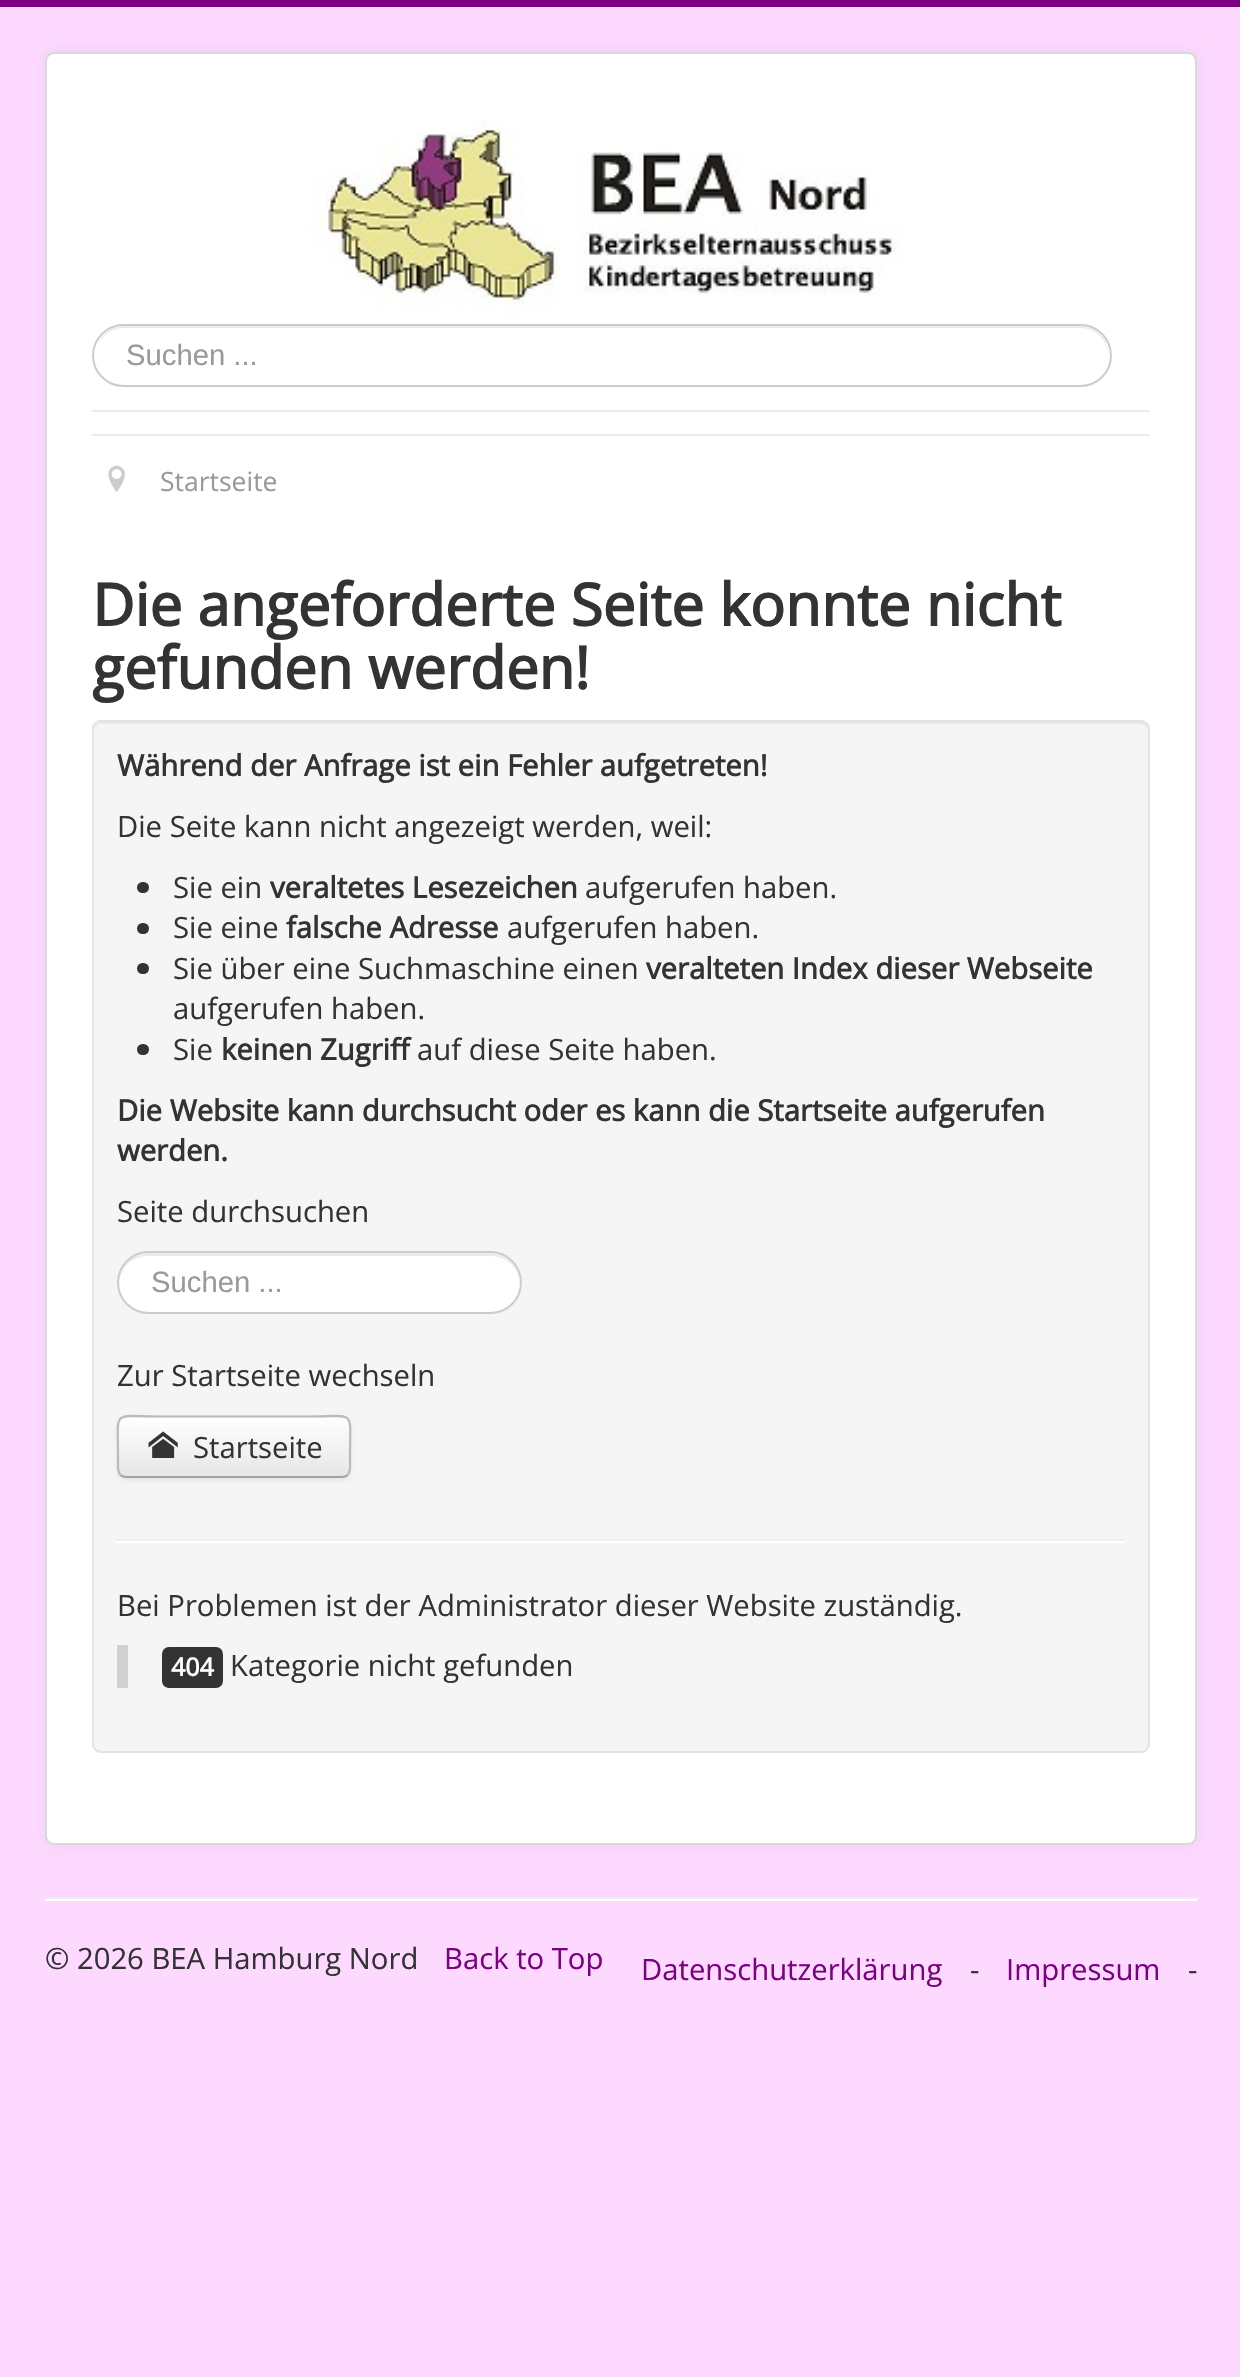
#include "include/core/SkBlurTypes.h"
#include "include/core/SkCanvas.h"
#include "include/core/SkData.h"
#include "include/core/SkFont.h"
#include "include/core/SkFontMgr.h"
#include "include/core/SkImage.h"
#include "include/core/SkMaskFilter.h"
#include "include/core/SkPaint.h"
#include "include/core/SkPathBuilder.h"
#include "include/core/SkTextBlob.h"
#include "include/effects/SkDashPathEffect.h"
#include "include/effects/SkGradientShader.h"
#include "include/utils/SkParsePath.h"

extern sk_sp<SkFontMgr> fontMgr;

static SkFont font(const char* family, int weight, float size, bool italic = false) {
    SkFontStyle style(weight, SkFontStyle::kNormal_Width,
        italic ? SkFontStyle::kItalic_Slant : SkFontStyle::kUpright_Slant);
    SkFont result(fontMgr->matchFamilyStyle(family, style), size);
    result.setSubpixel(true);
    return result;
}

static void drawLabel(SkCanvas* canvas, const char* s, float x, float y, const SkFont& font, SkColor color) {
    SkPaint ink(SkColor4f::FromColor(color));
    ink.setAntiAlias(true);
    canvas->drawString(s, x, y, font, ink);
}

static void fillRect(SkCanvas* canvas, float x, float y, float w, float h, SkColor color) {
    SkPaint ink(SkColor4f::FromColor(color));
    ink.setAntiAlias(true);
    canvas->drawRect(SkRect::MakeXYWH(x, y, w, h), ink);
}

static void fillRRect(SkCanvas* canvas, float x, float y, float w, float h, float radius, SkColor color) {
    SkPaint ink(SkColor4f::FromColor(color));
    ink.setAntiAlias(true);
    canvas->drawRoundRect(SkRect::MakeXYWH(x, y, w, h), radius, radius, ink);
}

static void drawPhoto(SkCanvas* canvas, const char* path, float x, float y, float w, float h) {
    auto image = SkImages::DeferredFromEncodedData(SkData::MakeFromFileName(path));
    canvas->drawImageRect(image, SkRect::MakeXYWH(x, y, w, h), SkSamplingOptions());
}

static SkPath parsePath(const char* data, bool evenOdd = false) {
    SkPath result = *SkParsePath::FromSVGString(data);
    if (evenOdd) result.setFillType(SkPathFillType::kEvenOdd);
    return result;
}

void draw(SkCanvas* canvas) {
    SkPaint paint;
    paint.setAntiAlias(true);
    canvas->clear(0xFFFDD9FF);
    fillRect(canvas, 0, 0, 1240, 7, 0xFF7C0082);
    paint.setColor(0x0D000000);
    paint.setMaskFilter(SkMaskFilter::MakeBlur(kNormal_SkBlurStyle, 7));
    canvas->drawRoundRect(SkRect::MakeXYWH(45, 52, 1152, 1793), 9, 9, paint);
    paint.setMaskFilter(nullptr);
    fillRRect(canvas, 45, 52, 1152, 1793, 9, 0xFFFFFFFF);
    paint.setStroke(true);
    paint.setStrokeWidth(2);
    paint.setColor(0x26000000);
    canvas->drawRoundRect(SkRect::MakeXYWH(46, 53, 1150, 1791), 8, 8, paint);
    drawPhoto(canvas, "assets/img1.png", 309, 120, 593, 195);
    paint.setStroke(false);
    paint.setColor(0xFFECECEC);
    canvas->drawPath(parsePath("M124 328H1080C1096 328 1108 341 1109 357V356C1109 339 1096 326 1080 326H124C111 326 100 335 96 347C101 336 112 328 124 328Z"), paint);
    paint.setStroke(true);
    paint.setColor(0xFFCCCCCC);
    canvas->drawRoundRect(SkRect::MakeXYWH(93, 325, 1018, 61), 30.5f, 30.5f, paint);
    SkFont font1 = font("Liberation Sans", 400, 29.25f);
    drawLabel(canvas, "Suchen ...", 126, 365, font1, 0xFF999999);
    fillRect(canvas, 92, 410, 1058, 2, 0xFFECECEC);
    fillRect(canvas, 92, 434, 1058, 2, 0xFFECECEC);
    drawPhoto(canvas, "assets/img2.png", 108, 465, 17, 27);
    SkFont font2 = font("Open Sans", 400, 26.5f);
    drawLabel(canvas, "Startseite", 160, 491, font2, 0xFF999999);
    SkFont font3 = font("Open Sans", 700, 58.5f);
    drawLabel(canvas, "Die angeforderte Seite konnte nicht", 92, 626, font3, 0xFF333333);
    drawLabel(canvas, "gefunden werden!", 92, 689, font3, 0xFF333333);
    fillRRect(canvas, 92, 720, 1058, 1033, 9, 0xFFF5F5F5);
    paint.setStroke(false);
    paint.setColor(0xFFE9E9E9);
    canvas->drawPath(parsePath("M101 724H1141C1144 724 1148 728 1148 731V729C1148 725 1145 722 1141 722H102C98 722 96 725 95 728C96 726 99 724 101 724Z"), paint);
    paint.setStroke(true);
    paint.setColor(0xFFE3E3E3);
    canvas->drawRoundRect(SkRect::MakeXYWH(93, 721, 1056, 1031), 8, 8, paint);
    SkFont font4 = font("Open Sans", 700, 29.25f);
    drawLabel(canvas, "Während der Anfrage ist ein Fehler aufgetreten!", 117, 776, font4, 0xFF333333);
    SkFont font5 = font("Open Sans", 400, 29.25f);
    drawLabel(canvas, "Die Seite kann nicht angezeigt werden, weil:", 117, 837, font5, 0xFF333333);
    fillRRect(canvas, 137, 882, 12, 11, 5.5f, 0xFF333333);
    drawLabel(canvas, "Sie ein", 173, 898, font5, 0xFF333333);
    drawLabel(canvas, "veraltetes Lesezeichen", 270, 898, font4, 0xFF333333);
    drawLabel(canvas, "aufgerufen haben.", 585, 898, font5, 0xFF333333);
    fillRRect(canvas, 137, 923, 12, 11, 5.5f, 0xFF333333);
    drawLabel(canvas, "Sie eine", 173, 938, font5, 0xFF333333);
    drawLabel(canvas, "falsche Adresse", 286, 938, font4, 0xFF333333);
    drawLabel(canvas, "aufgerufen haben.", 507, 938, font5, 0xFF333333);
    fillRRect(canvas, 137, 963, 12, 11, 5.5f, 0xFF333333);
    drawLabel(canvas, "Sie über eine Suchmaschine einen", 173, 979, font5, 0xFF333333);
    drawLabel(canvas, "veralteten Index dieser Webseite", 646, 979, font4, 0xFF333333);
    drawLabel(canvas, "aufgerufen haben.", 173, 1019, font5, 0xFF333333);
    fillRRect(canvas, 137, 1044, 12, 11, 5.5f, 0xFF333333);
    drawLabel(canvas, "Sie", 173, 1060, font5, 0xFF333333);
    drawLabel(canvas, "keinen Zugriff", 221, 1060, font4, 0xFF333333);
    drawLabel(canvas, "auf diese Seite haben.", 417, 1060, font5, 0xFF333333);
    drawLabel(canvas, "Die Website kann durchsucht oder es kann die Startseite aufgerufen", 117, 1121, font4, 0xFF333333);
    drawLabel(canvas, "werden.", 117, 1161, font4, 0xFF333333);
    drawLabel(canvas, "Seite durchsuchen", 117, 1222, font5, 0xFF333333);
    fillRRect(canvas, 117, 1251, 405, 63, 31.5f, 0xFFFFFFFF);
    paint.setStroke(false);
    paint.setColor(0xFFECECEC);
    canvas->drawPath(parsePath("M148 1256H490C507 1256 519 1268 520 1284V1282C520 1266 507 1253 490 1253H148C132 1253 119 1266 119 1282V1284C120 1268 132 1256 148 1256Z"), paint);
    paint.setStroke(true);
    paint.setColor(0xFFCCCCCC);
    canvas->drawRoundRect(SkRect::MakeXYWH(118, 1252, 403, 61), 30.5f, 30.5f, paint);
    drawLabel(canvas, "Suchen ...", 151, 1292, font1, 0xFF999999);
    drawLabel(canvas, "Zur Startseite wechseln", 117, 1386, font5, 0xFF333333);
    paint.setStroke(false);
    paint.setColor(0x0D000000);
    paint.setMaskFilter(SkMaskFilter::MakeBlur(kNormal_SkBlurStyle, 2));
    canvas->drawRoundRect(SkRect::MakeXYWH(117, 1418, 234, 63), 9, 9, paint);
    paint.setMaskFilter(nullptr);
    canvas->save();
    canvas->clipPath(parsePath("M126 1415H342C347 1415 351 1419 351 1424V1469C351 1474 347 1478 342 1478H126C121 1478 117 1474 117 1469V1424C117 1419 121 1415 126 1415Z"), true);
    {
        const SkColor colors[] = {0xFFFFFFFF, 0xFFE6E6E6};
        const float stops[] = {0, 1};
        const SkPoint ends[] = {{234, 1418}, {234, 1476}};
        paint.setShader(SkGradientShader::MakeLinear(ends, colors, stops, 2, SkTileMode::kClamp));
        paint.setAlpha(255);
    }
    canvas->drawRect(SkRect::MakeXYWH(117, 1418, 234, 58), paint);
    canvas->restore();
    paint.setStroke(true);
    paint.setStrokeWidth(2.2f);
    paint.setShader(nullptr);
    paint.setColor(0xFFA2A2A2);
    canvas->drawPath(parsePath("M347.5 1475C346 1476.5 344 1477 342 1477H126C124 1477 122 1476.5 120.5 1475"), paint);
    paint.setColor(0xFFBBBBBB);
    canvas->drawPath(parsePath("M120.5 1475C117 1471.5 118 1466 118 1462V1454C118 1408 111.5 1416.5 162 1416.5H306C356.5 1416.5 350 1408 350 1454V1462C350 1466 351 1471.5 347.5 1475"), paint);
    drawPhoto(canvas, "assets/img3.png", 148, 1431, 30, 27);
    drawLabel(canvas, "Startseite", 193, 1458, font5, 0xFF333333);
    fillRect(canvas, 117, 1539, 1008, 2, 0xFFEEEEEE);
    fillRect(canvas, 117, 1541, 1008, 2, 0xFFFFFFFF);
    drawLabel(canvas, "Bei Problemen ist der Administrator dieser Website zuständig.", 117, 1616, font5, 0xFF333333);
    fillRect(canvas, 117, 1645, 11, 43, 0xFFD0D0D0);
    fillRRect(canvas, 162, 1647, 61, 41, 7, 0xFF333333);
    SkFont font6 = font("Open Sans", 700, 25);
    drawLabel(canvas, "404", 171, 1676, font6, 0xFFFFFFFF);
    drawLabel(canvas, "Kategorie nicht gefunden", 230, 1676, font5, 0xFF333333);
    fillRect(canvas, 45, 1897, 1152, 2, 0xFFEEEEEE);
    fillRect(canvas, 45, 1899, 1152, 2, 0xFFFFFFFF);
    drawLabel(canvas, "© 2026 BEA Hamburg Nord", 45, 1969, font5, 0xFF333333);
    drawLabel(canvas, "Back to Top", 444, 1969, font5, 0xFF7C0082);
    drawLabel(canvas, "Datenschutzerklärung", 641, 1980, font5, 0xFF7C0082);
    drawLabel(canvas, "-", 970, 1980, font5, 0xFF333333);
    drawLabel(canvas, "Impressum", 1006, 1980, font5, 0xFF7C0082);
    drawLabel(canvas, "-", 1188, 1980, font5, 0xFF333333);
}
